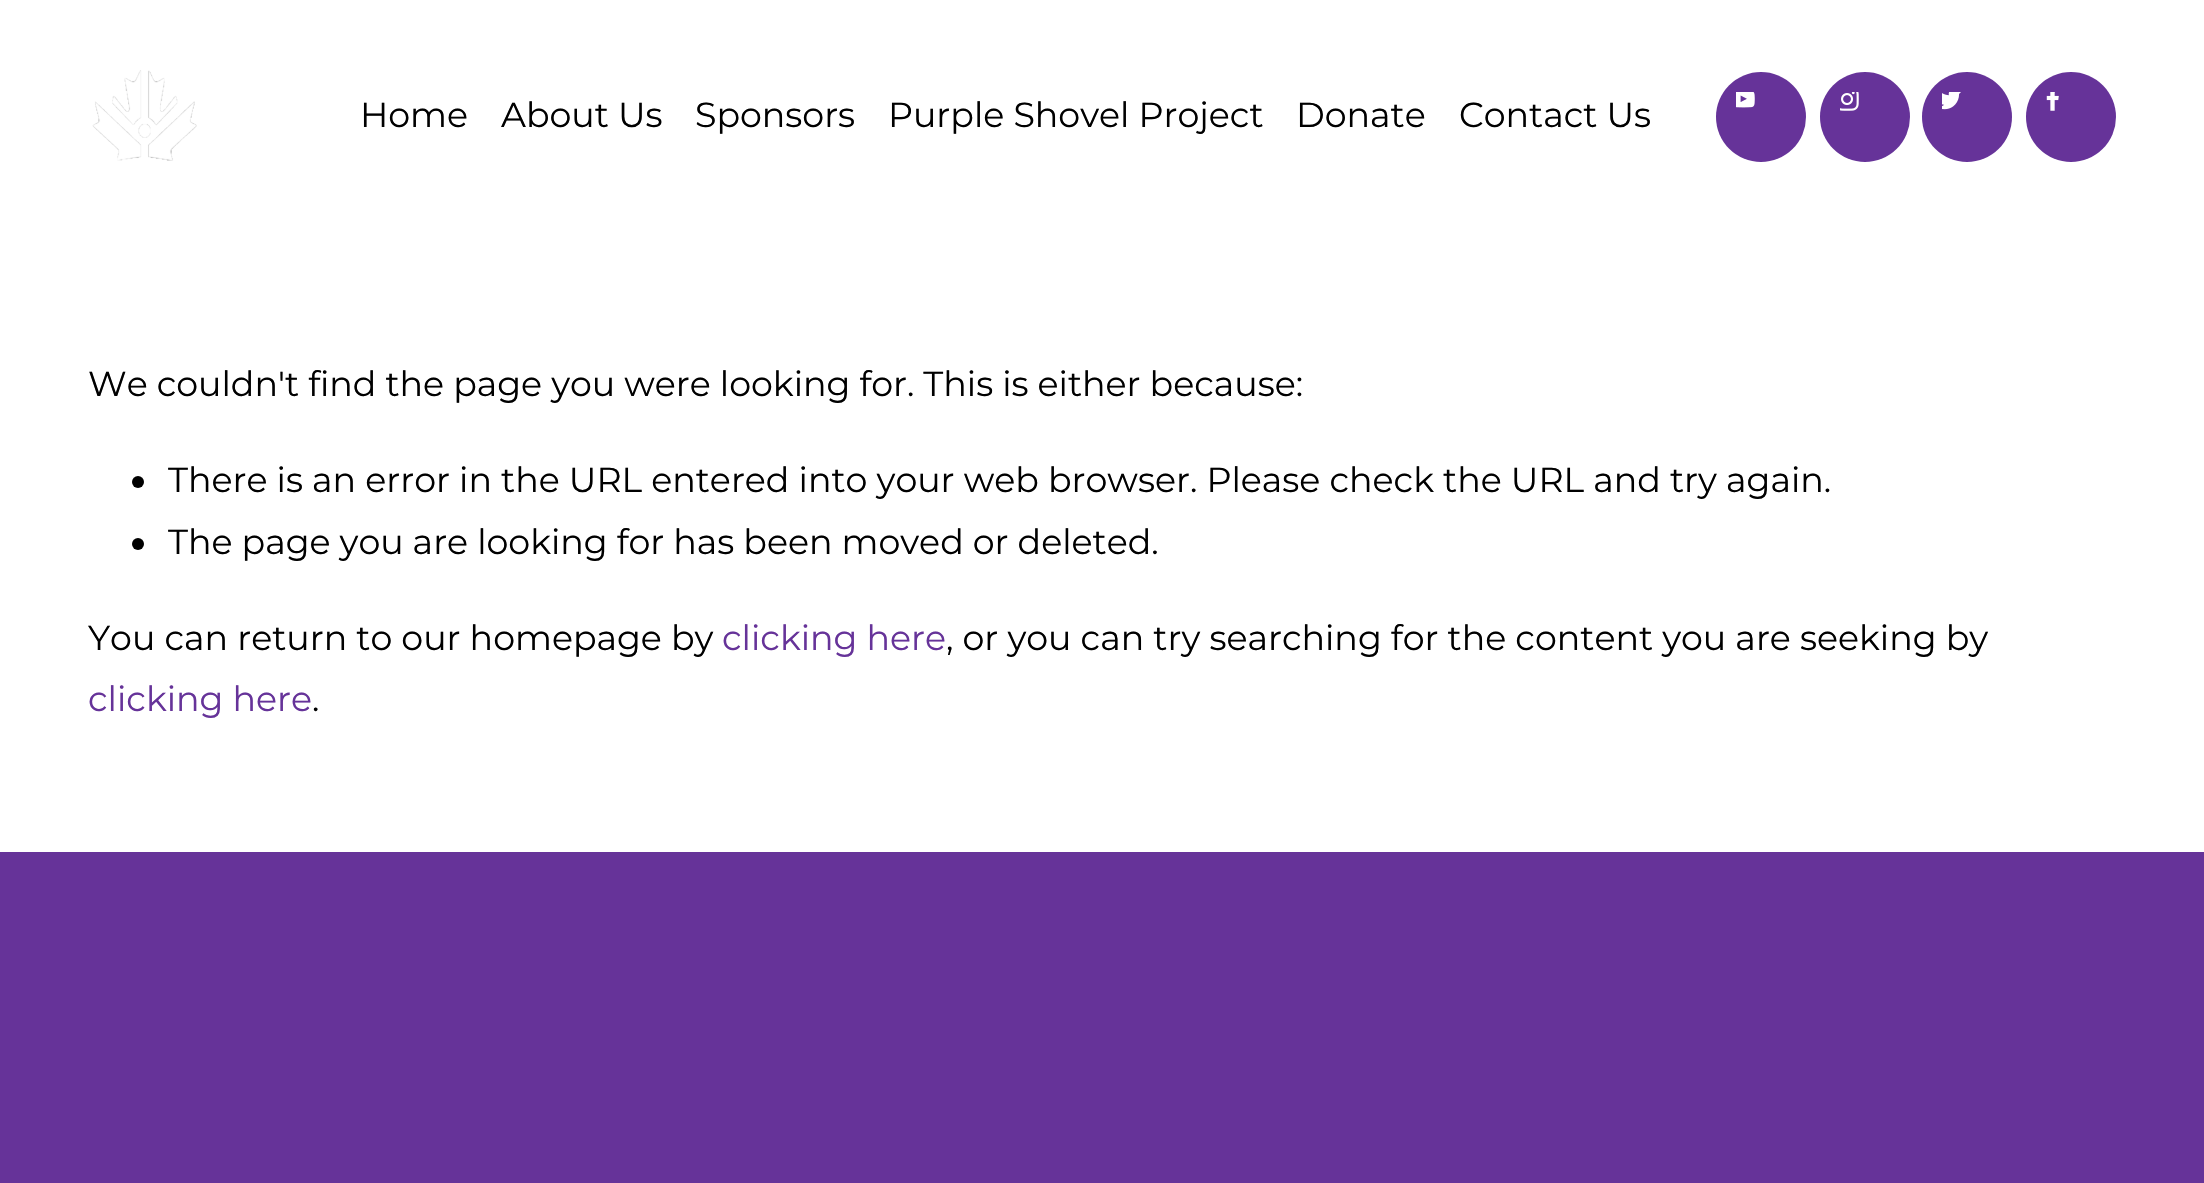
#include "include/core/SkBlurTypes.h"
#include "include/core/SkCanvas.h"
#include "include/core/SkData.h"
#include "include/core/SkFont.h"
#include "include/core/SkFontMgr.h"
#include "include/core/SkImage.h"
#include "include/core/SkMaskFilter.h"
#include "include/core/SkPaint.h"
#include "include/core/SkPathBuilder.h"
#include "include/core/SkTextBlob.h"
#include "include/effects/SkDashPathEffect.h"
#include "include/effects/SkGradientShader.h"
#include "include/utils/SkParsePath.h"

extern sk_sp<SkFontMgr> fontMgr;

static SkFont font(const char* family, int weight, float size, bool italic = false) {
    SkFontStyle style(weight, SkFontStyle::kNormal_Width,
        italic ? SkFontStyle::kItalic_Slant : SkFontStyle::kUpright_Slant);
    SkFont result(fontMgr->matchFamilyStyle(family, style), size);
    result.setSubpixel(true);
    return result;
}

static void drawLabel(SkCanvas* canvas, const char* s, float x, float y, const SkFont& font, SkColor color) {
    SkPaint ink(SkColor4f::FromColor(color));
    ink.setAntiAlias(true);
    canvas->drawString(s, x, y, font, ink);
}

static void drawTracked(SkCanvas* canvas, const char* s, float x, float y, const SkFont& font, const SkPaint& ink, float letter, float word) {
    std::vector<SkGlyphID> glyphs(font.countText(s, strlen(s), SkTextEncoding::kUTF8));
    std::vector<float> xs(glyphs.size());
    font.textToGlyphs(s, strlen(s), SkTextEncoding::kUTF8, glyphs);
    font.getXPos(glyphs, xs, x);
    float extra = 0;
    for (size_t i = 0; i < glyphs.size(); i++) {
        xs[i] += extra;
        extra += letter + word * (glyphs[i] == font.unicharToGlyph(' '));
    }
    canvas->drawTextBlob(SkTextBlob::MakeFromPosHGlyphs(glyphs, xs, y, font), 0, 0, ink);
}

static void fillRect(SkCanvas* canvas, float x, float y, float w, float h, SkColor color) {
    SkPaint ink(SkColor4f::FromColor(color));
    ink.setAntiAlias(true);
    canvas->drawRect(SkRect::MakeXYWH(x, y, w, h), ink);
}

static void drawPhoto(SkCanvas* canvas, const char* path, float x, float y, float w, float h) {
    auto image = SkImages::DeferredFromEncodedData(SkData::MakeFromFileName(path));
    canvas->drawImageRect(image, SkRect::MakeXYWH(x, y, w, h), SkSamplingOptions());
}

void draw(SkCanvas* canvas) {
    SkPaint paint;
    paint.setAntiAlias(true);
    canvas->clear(0xFFFFFFFF);
    drawPhoto(canvas, "assets/img1.png", 92, 70, 105, 91);
    SkFont font1 = font("Montserrat", 400, 34.8f);
    drawLabel(canvas, "Home", 360, 127, font1, 0xFF000000);
    drawLabel(canvas, "About Us", 501, 127, font1, 0xFF000000);
    drawLabel(canvas, "Sponsors", 695, 127, font1, 0xFF000000);
    drawLabel(canvas, "Purple Shovel Project", 888, 127, font1, 0xFF000000);
    drawLabel(canvas, "Donate", 1296, 127, font1, 0xFF000000);
    drawLabel(canvas, "Contact Us", 1459, 127, font1, 0xFF000000);
    paint.setColor(0xFF663399);
    canvas->drawCircle(1761, 117, 45, paint);
    drawPhoto(canvas, "assets/img2.png", 1736, 92, 19, 16);
    canvas->drawCircle(1865, 117, 45, paint);
    drawPhoto(canvas, "assets/img3.png", 1840, 92, 19, 19);
    canvas->drawCircle(1967, 117, 45, paint);
    drawPhoto(canvas, "assets/img4.png", 1942, 92, 19, 18);
    canvas->drawCircle(2071, 117, 45, paint);
    drawPhoto(canvas, "assets/img5.png", 2046, 92, 13, 19);
    paint.setColor(0xFF000000);
    drawTracked(canvas, "We couldn't find the page you were looking for. This is either because:", 88, 396, font1, paint, 0, -0.1f);
    canvas->drawCircle(138, 482, 6, paint);
    drawLabel(canvas, "There is an error in the URL entered into your web browser. Please check the URL and try again.", 168, 492, font1, 0xFF000000);
    canvas->drawCircle(138, 544, 6, paint);
    drawTracked(canvas, "The page you are looking for has been moved or deleted.", 168, 554, font1, paint, 0, -0.1f);
    drawLabel(canvas, "You can return to our homepage by", 88, 650, font1, 0xFF000000);
    drawLabel(canvas, "clicking here", 722, 650, font1, 0xFF663399);
    drawLabel(canvas, ", or you can try searching for the content you are seeking by", 946, 650, font1, 0xFF000000);
    drawLabel(canvas, "clicking here", 88, 711, font1, 0xFF663399);
    drawLabel(canvas, ".", 312, 711, font1, 0xFF000000);
    fillRect(canvas, 0, 852, 2204, 331, 0xFF663399);
}
